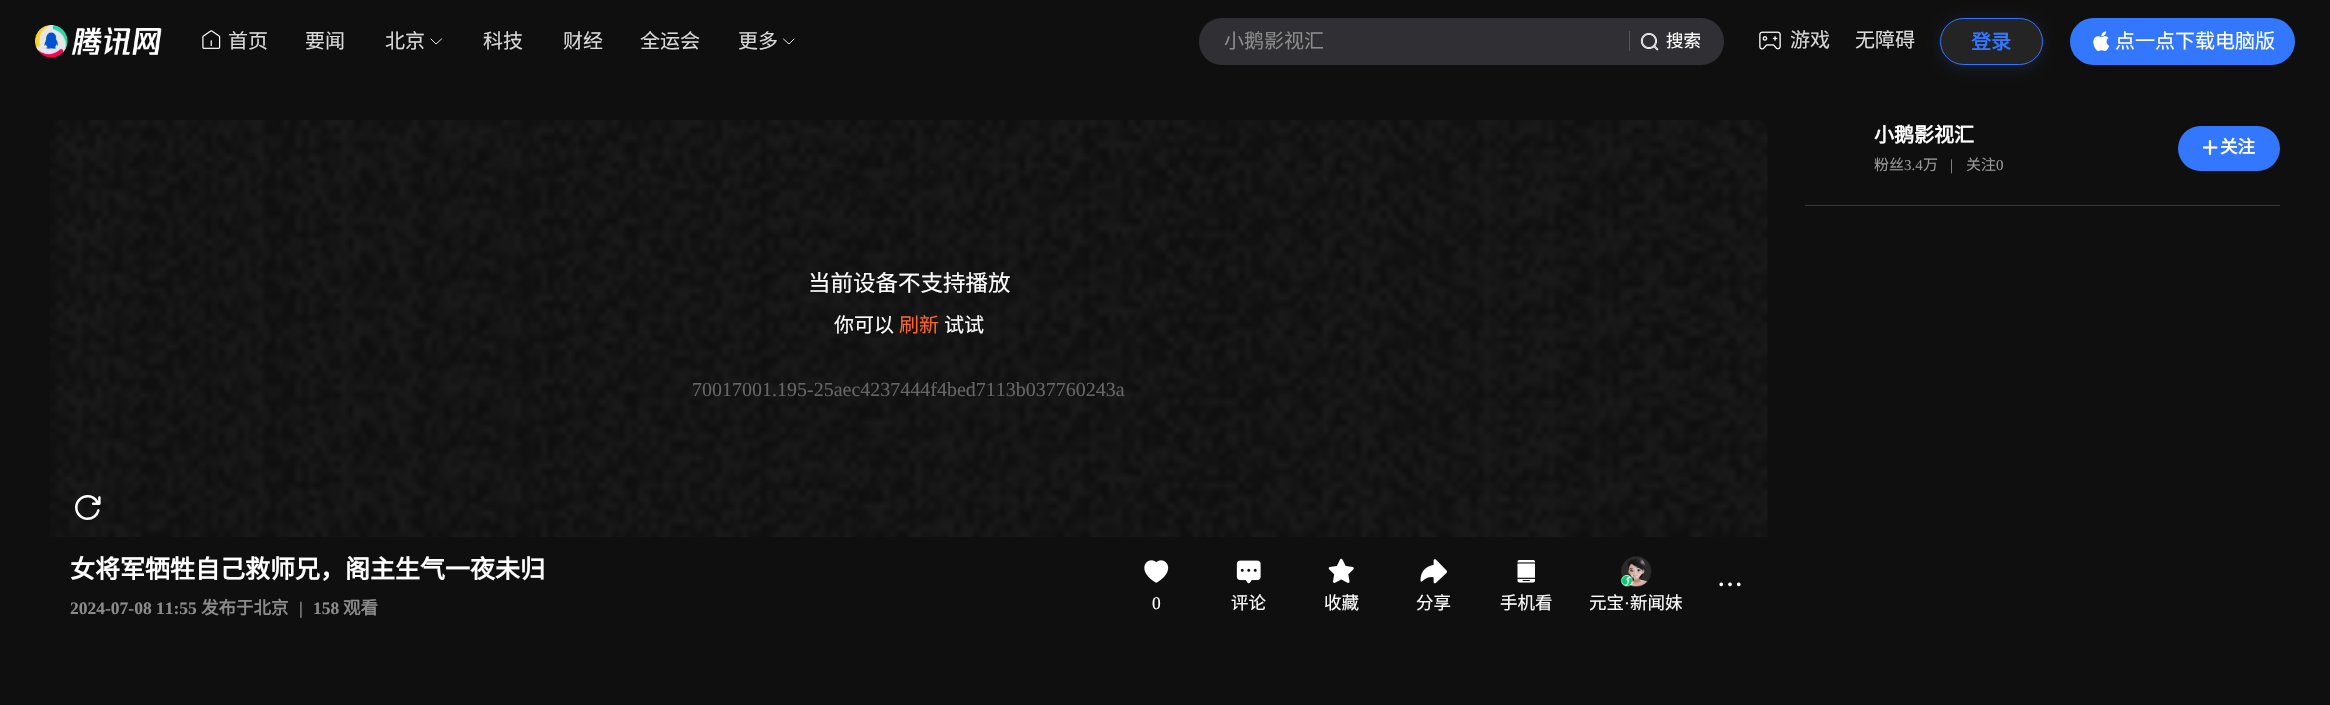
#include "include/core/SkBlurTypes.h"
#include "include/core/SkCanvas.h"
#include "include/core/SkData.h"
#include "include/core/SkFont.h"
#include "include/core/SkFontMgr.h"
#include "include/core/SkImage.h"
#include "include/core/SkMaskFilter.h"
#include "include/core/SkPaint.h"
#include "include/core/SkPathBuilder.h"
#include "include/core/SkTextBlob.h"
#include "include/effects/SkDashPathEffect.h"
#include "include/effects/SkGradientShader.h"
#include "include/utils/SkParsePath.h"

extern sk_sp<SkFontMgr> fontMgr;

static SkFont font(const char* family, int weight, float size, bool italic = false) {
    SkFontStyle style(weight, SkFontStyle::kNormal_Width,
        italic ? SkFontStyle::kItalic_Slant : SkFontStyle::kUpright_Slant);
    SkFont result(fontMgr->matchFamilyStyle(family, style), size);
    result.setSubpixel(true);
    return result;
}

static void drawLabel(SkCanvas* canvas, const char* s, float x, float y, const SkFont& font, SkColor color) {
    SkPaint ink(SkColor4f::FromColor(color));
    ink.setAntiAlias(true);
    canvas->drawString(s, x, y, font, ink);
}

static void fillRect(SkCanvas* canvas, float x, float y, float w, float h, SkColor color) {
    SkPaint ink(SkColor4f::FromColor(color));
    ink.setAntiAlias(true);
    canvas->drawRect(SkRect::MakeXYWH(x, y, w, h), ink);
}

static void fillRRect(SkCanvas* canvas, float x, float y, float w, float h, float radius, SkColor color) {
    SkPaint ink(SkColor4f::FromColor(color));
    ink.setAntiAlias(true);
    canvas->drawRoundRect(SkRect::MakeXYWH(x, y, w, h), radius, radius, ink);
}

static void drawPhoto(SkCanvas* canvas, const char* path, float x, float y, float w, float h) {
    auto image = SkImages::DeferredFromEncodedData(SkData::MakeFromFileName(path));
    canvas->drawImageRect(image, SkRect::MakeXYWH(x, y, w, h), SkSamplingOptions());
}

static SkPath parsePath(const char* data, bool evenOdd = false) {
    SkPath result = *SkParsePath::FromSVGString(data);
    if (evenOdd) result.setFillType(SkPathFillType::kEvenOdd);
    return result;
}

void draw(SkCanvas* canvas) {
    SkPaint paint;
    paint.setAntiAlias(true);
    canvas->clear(0xFF0F0F0F);
    drawPhoto(canvas, "assets/img1.png", 35, 25, 127, 33);
    drawPhoto(canvas, "assets/img2.png", 202, 30, 19, 19);
    SkFont font1 = font("Noto Sans CJK SC", 400, 20);
    drawLabel(canvas, "首页", 228, 48, font1, 0xFFD9D9D9);
    drawLabel(canvas, "要闻", 305, 48, font1, 0xFFD9D9D9);
    drawLabel(canvas, "北京", 385, 48, font1, 0xFFD9D9D9);
    paint.setStroke(true);
    paint.setStrokeWidth(0.9f);
    paint.setStrokeCap(SkPaint::kRound_Cap);
    paint.setStrokeJoin(SkPaint::kRound_Join);
    paint.setColor(0xFFFFFFFF);
    canvas->drawPath(parsePath("M441.5 39L436 44L431 39"), paint);
    drawLabel(canvas, "科技", 483, 48, font1, 0xFFD9D9D9);
    drawLabel(canvas, "财经", 563, 48, font1, 0xFFD9D9D9);
    drawLabel(canvas, "全运会", 640, 48, font1, 0xFFD9D9D9);
    drawLabel(canvas, "更多", 738, 48, font1, 0xFFD9D9D9);
    canvas->drawPath(parsePath("M794 39L789 44L783.5 39"), paint);
    fillRRect(canvas, 1199, 18, 525, 47, 23, 0xFF2F2F34);
    drawLabel(canvas, "小鹅影视汇", 1224, 48, font1, 0xFF8B8B8B);
    fillRect(canvas, 1629, 31, 1, 20, 0xFF59595D);
    drawPhoto(canvas, "assets/img3.png", 1640, 32, 19, 19);
    SkFont font2 = font("Noto Sans CJK SC", 400, 17.5f);
    drawLabel(canvas, "搜索", 1666, 47, font2, 0xFFFFFFFF);
    drawPhoto(canvas, "assets/img4.png", 1759, 31, 22, 19);
    drawLabel(canvas, "游戏", 1790, 47, font1, 0xFFD9D9D9);
    drawLabel(canvas, "无障碍", 1855, 47, font1, 0xFFD9D9D9);
    canvas->save();
    canvas->clipPath(parsePath("M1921 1H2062V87H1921ZM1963.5 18H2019.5C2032.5 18 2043 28.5 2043 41.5C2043 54.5 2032.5 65 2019.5 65H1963.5C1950.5 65 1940 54.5 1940 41.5C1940 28.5 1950.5 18 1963.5 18Z", true), true);
    paint.setStroke(false);
    paint.setColor(0x293377FF);
    paint.setMaskFilter(SkMaskFilter::MakeBlur(kNormal_SkBlurStyle, 6));
    canvas->drawRoundRect(SkRect::MakeXYWH(1940, 20, 103, 48), 24, 24, paint);
    paint.setMaskFilter(nullptr);
    canvas->restore();
    paint.setColor(0x1AD9D9D9);
    canvas->drawRoundRect(SkRect::MakeXYWH(1940.5f, 18.5f, 102, 46), 23, 23, paint);
    paint.setStroke(true);
    paint.setStrokeWidth(1);
    paint.setStrokeCap(SkPaint::kButt_Cap);
    paint.setStrokeJoin(SkPaint::kMiter_Join);
    paint.setColor(0xFF3377FF);
    canvas->drawRoundRect(SkRect::MakeXYWH(1940.5f, 18.5f, 102, 46), 23, 23, paint);
    SkFont font3 = font("Noto Sans CJK SC", 700, 20);
    drawLabel(canvas, "登录", 1971, 49, font3, 0xFF3377FF);
    fillRRect(canvas, 2070, 18, 225, 47, 23.5f, 0xFF3377FF);
    drawPhoto(canvas, "assets/img5.png", 2093, 31, 17, 20);
    drawLabel(canvas, "点一点下载电脑版", 2115, 48, font1, 0xFFFFFFFF);
    drawLabel(canvas, "小鹅影视汇", 1874, 142, font3, 0xFFFFFFFF);
    SkFont font4 = font("Noto Sans CJK SC", 400, 15);
    drawLabel(canvas, "粉丝", 1874, 170, font4, 0xFF999999);
    SkFont font5 = font("Liberation Serif", 400, 15);
    drawLabel(canvas, "3.4", 1904, 170, font5, 0xFF999999);
    drawLabel(canvas, "万", 1923, 170, font4, 0xFF999999);
    drawLabel(canvas, "|", 1950, 170, font5, 0xFF999999);
    drawLabel(canvas, "关注", 1966, 170, font4, 0xFF999999);
    drawLabel(canvas, "0", 1996, 170, font5, 0xFF999999);
    fillRRect(canvas, 2178, 126, 102, 45, 22.5f, 0xFF3377FF);
    drawPhoto(canvas, "assets/img6.png", 2203, 140, 15, 15);
    SkFont font6 = font("Noto Sans CJK SC", 700, 17.5f);
    drawLabel(canvas, "关注", 2220, 153, font6, 0xFFFFFFFF);
    fillRect(canvas, 1805, 205, 475, 1, 0xFF383838);
    drawPhoto(canvas, "assets/img7.png", 50, 120, 1718, 417);
    SkFont font7 = font("Noto Sans CJK SC", 400, 22.5f);
    drawLabel(canvas, "当前设备不支持播放", 808, 291, font7, 0xFFFFFFFF);
    drawLabel(canvas, "你可以", 834, 332, font1, 0xFFFFFFFF);
    drawLabel(canvas, "刷新", 899, 332, font1, 0xFFFC6526);
    drawLabel(canvas, "试试", 944, 332, font1, 0xFFFFFFFF);
    SkFont font8 = font("Liberation Serif", 400, 20);
    drawLabel(canvas, "70017001.195-25aec4237444f4bed7113b037760243a", 692, 396, font8, 0xFF666666);
    SkFont font9 = font("Noto Sans CJK SC", 700, 25);
    drawLabel(canvas, "女将军牺牲自己救师兄，阁主生气一夜未归", 70, 578, font9, 0xFFFFFFFF);
    SkFont font10 = font("Liberation Serif", 700, 17.5f);
    drawLabel(canvas, "2024-07-08 11:55", 70, 614, font10, 0xFF8B8B8B);
    drawLabel(canvas, "发布于北京", 201, 614, font6, 0xFF8B8B8B);
    drawLabel(canvas, "|", 299, 614, font10, 0xFF8B8B8B);
    drawLabel(canvas, "158", 313, 614, font10, 0xFF8B8B8B);
    drawLabel(canvas, "观看", 343, 614, font6, 0xFF8B8B8B);
    drawPhoto(canvas, "assets/img8.png", 1719, 582, 22, 5);
    drawPhoto(canvas, "assets/img9.png", 1144, 560, 25, 23);
    SkFont font11 = font("Liberation Serif", 400, 17.5f);
    drawLabel(canvas, "0", 1152, 609, font11, 0xFFFFFFFF);
    drawPhoto(canvas, "assets/img10.png", 1236, 560, 25, 24);
    drawLabel(canvas, "评论", 1231, 609, font2, 0xFFFFFFFF);
    drawPhoto(canvas, "assets/img11.png", 1328, 558, 26, 25);
    drawLabel(canvas, "收藏", 1324, 609, font2, 0xFFFFFFFF);
    drawPhoto(canvas, "assets/img12.png", 1420, 559, 27, 25);
    drawLabel(canvas, "分享", 1416, 609, font2, 0xFFFFFFFF);
    drawPhoto(canvas, "assets/img13.png", 1517, 560, 18, 23);
    drawLabel(canvas, "手机看", 1500, 609, font2, 0xFFFFFFFF);
    drawPhoto(canvas, "assets/img14.png", 1621, 556, 31, 31);
    drawPhoto(canvas, "assets/img15.png", 1621, 575, 12, 12);
    drawLabel(canvas, "元宝", 1589, 609, font2, 0xFFFFFFFF);
    drawLabel(canvas, "·", 1624, 609, font11, 0xFFFFFFFF);
    drawLabel(canvas, "新闻妹", 1630, 609, font2, 0xFFFFFFFF);
}
